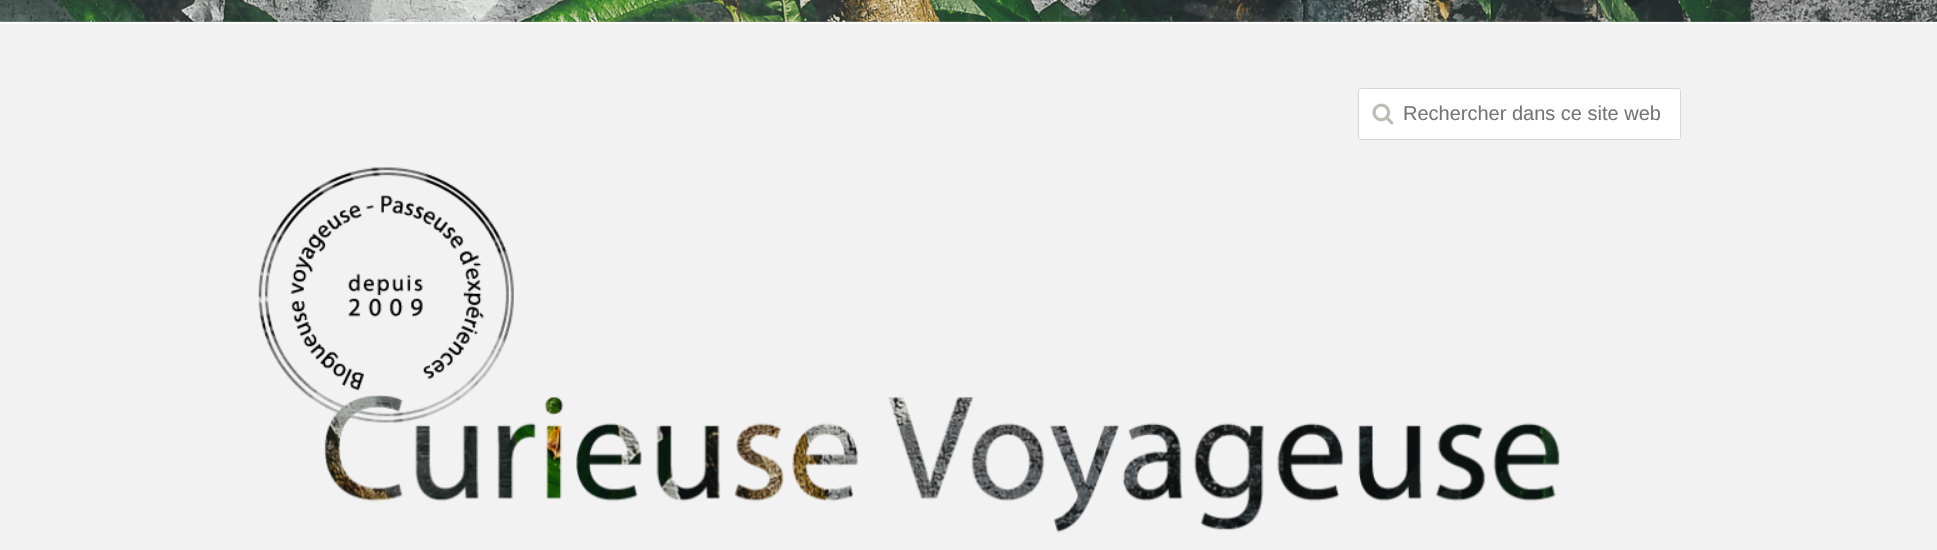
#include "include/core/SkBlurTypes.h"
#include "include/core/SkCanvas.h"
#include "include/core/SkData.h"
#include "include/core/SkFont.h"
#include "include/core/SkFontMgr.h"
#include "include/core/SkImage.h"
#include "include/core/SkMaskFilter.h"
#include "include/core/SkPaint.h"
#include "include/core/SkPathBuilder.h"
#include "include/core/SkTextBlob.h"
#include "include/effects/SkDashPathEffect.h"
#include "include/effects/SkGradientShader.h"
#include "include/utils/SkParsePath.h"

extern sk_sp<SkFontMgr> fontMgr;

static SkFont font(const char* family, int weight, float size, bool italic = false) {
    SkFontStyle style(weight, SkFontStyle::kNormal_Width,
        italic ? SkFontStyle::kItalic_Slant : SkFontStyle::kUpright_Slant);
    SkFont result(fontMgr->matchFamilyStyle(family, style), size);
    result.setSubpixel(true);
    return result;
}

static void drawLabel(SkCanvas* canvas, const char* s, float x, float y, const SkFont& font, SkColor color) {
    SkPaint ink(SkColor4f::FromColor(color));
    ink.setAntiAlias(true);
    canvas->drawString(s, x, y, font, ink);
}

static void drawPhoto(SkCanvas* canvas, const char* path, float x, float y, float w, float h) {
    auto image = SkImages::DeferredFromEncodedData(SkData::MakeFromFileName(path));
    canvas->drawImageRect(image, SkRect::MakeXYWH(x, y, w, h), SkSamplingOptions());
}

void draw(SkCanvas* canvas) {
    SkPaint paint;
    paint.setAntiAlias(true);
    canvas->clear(0xFFF2F2F2);
    drawPhoto(canvas, "assets/img1.png", 0, 0, 1937, 24);
    paint.setColor(0xFFFFFFFF);
    canvas->drawRoundRect(SkRect::MakeXYWH(1358.5f, 88.5f, 322, 51), 2, 2, paint);
    paint.setStroke(true);
    paint.setStrokeWidth(1);
    paint.setColor(0xFFD6D6D6);
    canvas->drawRoundRect(SkRect::MakeXYWH(1358.5f, 88.5f, 322, 51), 2, 2, paint);
    drawPhoto(canvas, "assets/img2.png", 1372, 103, 22, 22);
    SkFont font1 = font("Liberation Sans", 400, 20);
    drawLabel(canvas, "Rechercher dans ce site web", 1403, 120, font1, 0xFF757575);
    drawPhoto(canvas, "assets/img3.png", 258, 167, 256, 256);
    drawPhoto(canvas, "assets/img4.png", 324, 395, 1236, 138);
}
